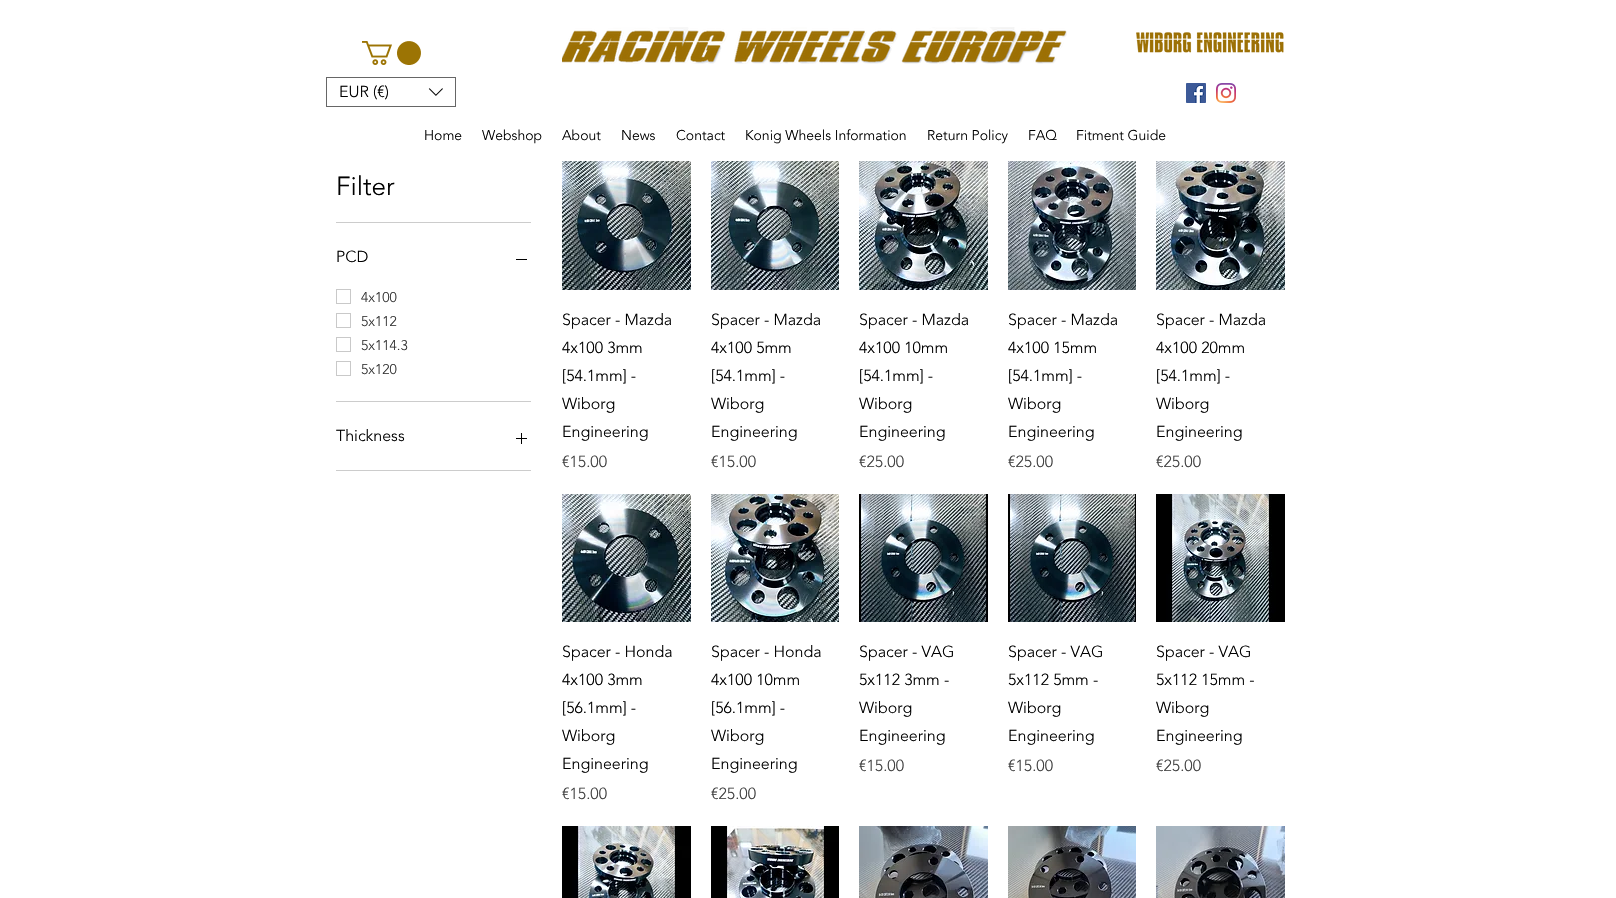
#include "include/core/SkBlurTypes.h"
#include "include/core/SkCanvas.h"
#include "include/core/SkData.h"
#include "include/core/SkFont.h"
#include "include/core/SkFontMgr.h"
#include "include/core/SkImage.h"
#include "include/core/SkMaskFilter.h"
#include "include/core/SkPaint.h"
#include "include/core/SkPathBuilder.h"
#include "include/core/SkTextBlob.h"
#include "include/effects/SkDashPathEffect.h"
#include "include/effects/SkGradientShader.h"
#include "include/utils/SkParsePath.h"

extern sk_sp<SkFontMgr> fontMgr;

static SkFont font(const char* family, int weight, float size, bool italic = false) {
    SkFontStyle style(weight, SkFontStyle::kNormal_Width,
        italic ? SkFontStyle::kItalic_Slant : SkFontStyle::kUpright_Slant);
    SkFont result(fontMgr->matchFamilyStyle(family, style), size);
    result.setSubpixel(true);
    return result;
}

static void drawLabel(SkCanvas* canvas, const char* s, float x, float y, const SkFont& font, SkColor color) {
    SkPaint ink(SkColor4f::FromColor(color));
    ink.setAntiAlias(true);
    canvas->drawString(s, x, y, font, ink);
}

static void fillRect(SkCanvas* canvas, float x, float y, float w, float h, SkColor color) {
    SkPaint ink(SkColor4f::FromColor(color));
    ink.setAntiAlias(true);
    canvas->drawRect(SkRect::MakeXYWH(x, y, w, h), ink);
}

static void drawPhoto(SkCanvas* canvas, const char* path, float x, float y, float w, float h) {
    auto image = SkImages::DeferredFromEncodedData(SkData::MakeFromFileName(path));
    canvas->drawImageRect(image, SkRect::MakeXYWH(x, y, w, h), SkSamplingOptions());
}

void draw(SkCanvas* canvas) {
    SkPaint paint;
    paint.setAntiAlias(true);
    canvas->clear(0xFFFFFFFF);
    drawPhoto(canvas, "assets/img1.png", 362, 41, 59, 24);
    drawPhoto(canvas, "assets/img2.png", 562, 27, 505, 37);
    drawPhoto(canvas, "assets/img3.png", 1136, 32, 148, 21);
    paint.setStroke(true);
    paint.setStrokeWidth(1);
    paint.setColor(0xFF666666);
    canvas->drawRect(SkRect::MakeXYWH(326.5f, 77.5f, 129, 29), paint);
    SkFont font1 = font("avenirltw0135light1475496", 300, 16);
    drawLabel(canvas, "EUR (€)", 339, 97, font1, 0xFF000000);
    drawPhoto(canvas, "assets/img4.png", 428, 88, 15, 8);
    drawPhoto(canvas, "assets/img5.png", 1186, 83, 20, 20);
    drawPhoto(canvas, "assets/img6.png", 1216, 83, 20, 20);
    SkFont font2 = font("avenirltw0135light1475496", 300, 14);
    drawLabel(canvas, "Home", 424, 140, font2, 0xFF000000);
    drawLabel(canvas, "Webshop", 482, 140, font2, 0xFF000000);
    drawLabel(canvas, "About", 562, 140, font2, 0xFF000000);
    drawLabel(canvas, "News", 621, 140, font2, 0xFF000000);
    drawLabel(canvas, "Contact", 676, 140, font2, 0xFF000000);
    drawLabel(canvas, "Konig Wheels Information", 745, 140, font2, 0xFF000000);
    drawLabel(canvas, "Return Policy", 927, 140, font2, 0xFF000000);
    drawLabel(canvas, "FAQ", 1028, 140, font2, 0xFF000000);
    drawLabel(canvas, "Fitment Guide", 1076, 140, font2, 0xFF000000);
    fillRect(canvas, 336, 222, 195, 1, 0xFFCCCCCC);
    SkFont font3 = font("avenirltw0135light1475496", 300, 26);
    drawLabel(canvas, "Filter", 336, 195, font3, 0xFF000000);
    fillRect(canvas, 336, 401, 195, 1, 0xFFCCCCCC);
    drawLabel(canvas, "PCD", 336, 262, font1, 0xFF000000);
    fillRect(canvas, 516, 259, 11, 1, 0xFF000000);
    paint.setColor(0xFFC9C9C9);
    canvas->drawRect(SkRect::MakeXYWH(336.5f, 289.5f, 14, 14), paint);
    drawLabel(canvas, "4x100", 361, 302, font2, 0xFF333333);
    canvas->drawRect(SkRect::MakeXYWH(336.5f, 313.5f, 14, 14), paint);
    drawLabel(canvas, "5x112", 361, 326, font2, 0xFF333333);
    canvas->drawRect(SkRect::MakeXYWH(336.5f, 337.5f, 14, 14), paint);
    drawLabel(canvas, "5x114.3", 361, 350, font2, 0xFF333333);
    canvas->drawRect(SkRect::MakeXYWH(336.5f, 361.5f, 14, 14), paint);
    drawLabel(canvas, "5x120", 361, 374, font2, 0xFF333333);
    fillRect(canvas, 336, 470, 195, 1, 0xFFCCCCCC);
    drawLabel(canvas, "Thickness", 336, 441, font1, 0xFF000000);
    drawPhoto(canvas, "assets/img7.png", 516, 433, 11, 11);
    drawPhoto(canvas, "assets/img8.png", 562, 161, 129, 129);
    drawLabel(canvas, "Spacer - Mazda", 562, 325, font1, 0xFF000000);
    drawLabel(canvas, "4x100 3mm", 562, 353, font1, 0xFF000000);
    drawLabel(canvas, "[54.1mm] -", 562, 381, font1, 0xFF000000);
    drawLabel(canvas, "Wiborg", 562, 409, font1, 0xFF000000);
    drawLabel(canvas, "Engineering", 562, 437, font1, 0xFF000000);
    drawLabel(canvas, "€15.00", 562, 467, font1, 0xFF404040);
    drawPhoto(canvas, "assets/img9.png", 711, 161, 128, 129);
    drawLabel(canvas, "Spacer - Mazda", 711, 325, font1, 0xFF000000);
    drawLabel(canvas, "4x100 5mm", 711, 353, font1, 0xFF000000);
    drawLabel(canvas, "[54.1mm] -", 711, 381, font1, 0xFF000000);
    drawLabel(canvas, "Wiborg", 711, 409, font1, 0xFF000000);
    drawLabel(canvas, "Engineering", 711, 437, font1, 0xFF000000);
    drawLabel(canvas, "€15.00", 711, 467, font1, 0xFF404040);
    drawPhoto(canvas, "assets/img10.png", 859, 161, 129, 129);
    drawLabel(canvas, "Spacer - Mazda", 859, 325, font1, 0xFF000000);
    drawLabel(canvas, "4x100 10mm", 859, 353, font1, 0xFF000000);
    drawLabel(canvas, "[54.1mm] -", 859, 381, font1, 0xFF000000);
    drawLabel(canvas, "Wiborg", 859, 409, font1, 0xFF000000);
    drawLabel(canvas, "Engineering", 859, 437, font1, 0xFF000000);
    drawLabel(canvas, "€25.00", 859, 467, font1, 0xFF404040);
    drawPhoto(canvas, "assets/img11.png", 1008, 161, 128, 129);
    drawLabel(canvas, "Spacer - Mazda", 1008, 325, font1, 0xFF000000);
    drawLabel(canvas, "4x100 15mm", 1008, 353, font1, 0xFF000000);
    drawLabel(canvas, "[54.1mm] -", 1008, 381, font1, 0xFF000000);
    drawLabel(canvas, "Wiborg", 1008, 409, font1, 0xFF000000);
    drawLabel(canvas, "Engineering", 1008, 437, font1, 0xFF000000);
    drawLabel(canvas, "€25.00", 1008, 467, font1, 0xFF404040);
    drawPhoto(canvas, "assets/img12.png", 1156, 161, 129, 129);
    drawLabel(canvas, "Spacer - Mazda", 1156, 325, font1, 0xFF000000);
    drawLabel(canvas, "4x100 20mm", 1156, 353, font1, 0xFF000000);
    drawLabel(canvas, "[54.1mm] -", 1156, 381, font1, 0xFF000000);
    drawLabel(canvas, "Wiborg", 1156, 409, font1, 0xFF000000);
    drawLabel(canvas, "Engineering", 1156, 437, font1, 0xFF000000);
    drawLabel(canvas, "€25.00", 1156, 467, font1, 0xFF404040);
    drawPhoto(canvas, "assets/img13.png", 562, 494, 129, 128);
    drawLabel(canvas, "Spacer - Honda", 562, 657, font1, 0xFF000000);
    drawLabel(canvas, "4x100 3mm", 562, 685, font1, 0xFF000000);
    drawLabel(canvas, "[56.1mm] -", 562, 713, font1, 0xFF000000);
    drawLabel(canvas, "Wiborg", 562, 741, font1, 0xFF000000);
    drawLabel(canvas, "Engineering", 562, 769, font1, 0xFF000000);
    drawLabel(canvas, "€15.00", 562, 799, font1, 0xFF404040);
    drawPhoto(canvas, "assets/img14.png", 711, 494, 128, 128);
    drawLabel(canvas, "Spacer - Honda", 711, 657, font1, 0xFF000000);
    drawLabel(canvas, "4x100 10mm", 711, 685, font1, 0xFF000000);
    drawLabel(canvas, "[56.1mm] -", 711, 713, font1, 0xFF000000);
    drawLabel(canvas, "Wiborg", 711, 741, font1, 0xFF000000);
    drawLabel(canvas, "Engineering", 711, 769, font1, 0xFF000000);
    drawLabel(canvas, "€25.00", 711, 799, font1, 0xFF404040);
    drawPhoto(canvas, "assets/img15.png", 859, 494, 129, 128);
    drawLabel(canvas, "Spacer - VAG", 859, 657, font1, 0xFF000000);
    drawLabel(canvas, "5x112 3mm -", 859, 685, font1, 0xFF000000);
    drawLabel(canvas, "Wiborg", 859, 713, font1, 0xFF000000);
    drawLabel(canvas, "Engineering", 859, 741, font1, 0xFF000000);
    drawLabel(canvas, "€15.00", 859, 771, font1, 0xFF404040);
    drawPhoto(canvas, "assets/img16.png", 1008, 494, 128, 128);
    drawLabel(canvas, "Spacer - VAG", 1008, 657, font1, 0xFF000000);
    drawLabel(canvas, "5x112 5mm -", 1008, 685, font1, 0xFF000000);
    drawLabel(canvas, "Wiborg", 1008, 713, font1, 0xFF000000);
    drawLabel(canvas, "Engineering", 1008, 741, font1, 0xFF000000);
    drawLabel(canvas, "€15.00", 1008, 771, font1, 0xFF404040);
    drawPhoto(canvas, "assets/img17.png", 1156, 494, 129, 128);
    drawLabel(canvas, "Spacer - VAG", 1156, 657, font1, 0xFF000000);
    drawLabel(canvas, "5x112 15mm -", 1156, 685, font1, 0xFF000000);
    drawLabel(canvas, "Wiborg", 1156, 713, font1, 0xFF000000);
    drawLabel(canvas, "Engineering", 1156, 741, font1, 0xFF000000);
    drawLabel(canvas, "€25.00", 1156, 771, font1, 0xFF404040);
    drawPhoto(canvas, "assets/img18.png", 562, 826, 129, 72);
    drawPhoto(canvas, "assets/img19.png", 711, 826, 128, 72);
    drawPhoto(canvas, "assets/img20.png", 859, 826, 129, 72);
    drawPhoto(canvas, "assets/img21.png", 1008, 826, 128, 72);
    drawPhoto(canvas, "assets/img22.png", 1156, 826, 129, 72);
}
